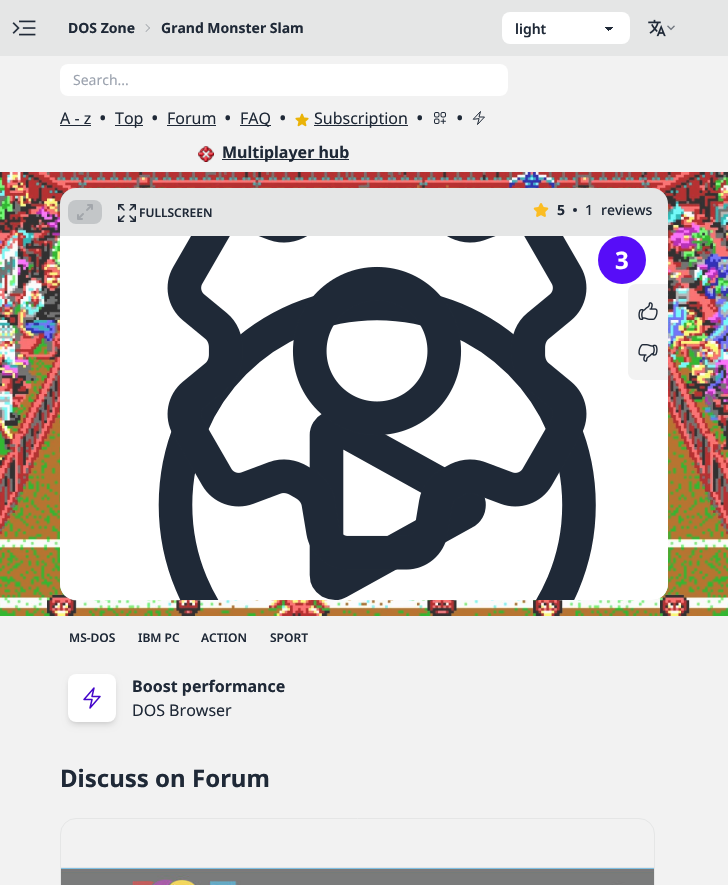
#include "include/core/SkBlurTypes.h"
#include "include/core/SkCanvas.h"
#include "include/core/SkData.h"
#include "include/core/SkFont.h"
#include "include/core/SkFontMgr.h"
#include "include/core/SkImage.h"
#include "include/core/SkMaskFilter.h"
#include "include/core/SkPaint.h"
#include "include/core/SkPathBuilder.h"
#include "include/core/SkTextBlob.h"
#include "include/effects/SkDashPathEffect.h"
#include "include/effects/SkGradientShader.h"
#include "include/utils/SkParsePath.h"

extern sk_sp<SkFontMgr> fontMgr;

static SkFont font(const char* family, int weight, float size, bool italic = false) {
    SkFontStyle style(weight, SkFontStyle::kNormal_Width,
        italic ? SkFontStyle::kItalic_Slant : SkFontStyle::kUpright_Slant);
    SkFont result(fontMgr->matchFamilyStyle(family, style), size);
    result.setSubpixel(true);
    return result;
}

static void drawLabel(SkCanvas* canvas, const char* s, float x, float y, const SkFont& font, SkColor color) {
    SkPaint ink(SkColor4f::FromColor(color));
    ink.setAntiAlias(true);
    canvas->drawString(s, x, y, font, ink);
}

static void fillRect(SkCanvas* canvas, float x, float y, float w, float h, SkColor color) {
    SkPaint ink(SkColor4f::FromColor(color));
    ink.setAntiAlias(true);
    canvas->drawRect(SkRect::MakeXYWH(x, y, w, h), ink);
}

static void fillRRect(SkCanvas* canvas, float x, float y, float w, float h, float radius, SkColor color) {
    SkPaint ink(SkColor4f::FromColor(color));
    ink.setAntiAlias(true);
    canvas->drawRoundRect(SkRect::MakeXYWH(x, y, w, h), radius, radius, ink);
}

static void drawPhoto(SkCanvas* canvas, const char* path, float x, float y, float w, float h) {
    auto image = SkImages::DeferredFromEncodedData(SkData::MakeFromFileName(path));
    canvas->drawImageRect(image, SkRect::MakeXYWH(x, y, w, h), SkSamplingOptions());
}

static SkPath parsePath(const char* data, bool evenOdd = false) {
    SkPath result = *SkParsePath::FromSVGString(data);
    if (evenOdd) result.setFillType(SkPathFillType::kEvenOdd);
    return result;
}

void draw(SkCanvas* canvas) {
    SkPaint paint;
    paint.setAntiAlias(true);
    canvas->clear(0xFFF2F2F2);
    fillRect(canvas, 0, 0, 728, 56, 0xFFE5E6E6);
    drawPhoto(canvas, "assets/img1.png", 12, 20, 24, 16);
    SkFont font1 = font("Noto Sans", 700, 14);
    drawLabel(canvas, "DOS Zone", 68, 33, font1, 0xFF1F2937);
    paint.setColor(0xFF969AA0);
    canvas->drawPath(parsePath("M146 24L150 28L149.5 28.5L145.5 24.5Z"), paint);
    canvas->drawPath(parsePath("M149.5 27.5L150 28L146 32L145.5 31.5Z"), paint);
    drawLabel(canvas, "Grand Monster Slam", 161, 33, font1, 0xFF1F2937);
    fillRRect(canvas, 502, 12, 128, 32, 8, 0xFFFFFFFF);
    {
        const SkColor colors[] = {0xFF1F2937, 0xFFFFFFFF};
        const float stops[] = {0.5f, 0.5f};
        const SkPoint ends[] = {{609, 27}, {613, 31}};
        paint.setShader(SkGradientShader::MakeLinear(ends, colors, stops, 2, SkTileMode::kClamp));
        paint.setAlpha(255);
    }
    canvas->drawRect(SkRect::MakeXYWH(609, 27, 4, 3), paint);
    {
        const SkColor colors[] = {0xFFFFFFFF, 0xFF1F2937};
        const float stops[] = {0.5f, 0.5f};
        const SkPoint ends[] = {{605, 31}, {609, 27}};
        paint.setShader(SkGradientShader::MakeLinear(ends, colors, stops, 2, SkTileMode::kClamp));
        paint.setAlpha(255);
    }
    canvas->drawRect(SkRect::MakeXYWH(605, 27, 4, 4), paint);
    SkFont font2 = font("Noto Sans", 600, 14);
    drawLabel(canvas, "light", 515, 34, font2, 0xFF1F2937);
    drawPhoto(canvas, "assets/img2.png", 648, 19, 18, 18);
    drawPhoto(canvas, "assets/img3.png", 667, 25, 8, 6);
    fillRRect(canvas, 60, 64, 448, 32, 8, 0xFFFFFFFF);
    SkFont font3 = font("Noto Sans", 400, 14);
    drawLabel(canvas, "Search...", 73, 85, font3, 0xFF9CA3AF);
    SkFont font4 = font("Noto Sans", 400, 16);
    drawLabel(canvas, "A - z", 60, 124, font4, 0xFF1F2937);
    fillRect(canvas, 60, 125, 31, 1, 0xFF1F2937);
    SkFont font5 = font("Noto Sans", 400, 20);
    drawLabel(canvas, "•", 99, 125, font5, 0xFF1F2937);
    fillRect(canvas, 115, 125, 28, 1, 0xFF1F2937);
    drawLabel(canvas, "Top", 115, 124, font4, 0xFF1F2937);
    drawLabel(canvas, "•", 151, 125, font5, 0xFF1F2937);
    drawLabel(canvas, "Forum", 167, 124, font4, 0xFF1F2937);
    fillRect(canvas, 167, 125, 49, 1, 0xFF1F2937);
    drawLabel(canvas, "•", 224, 125, font5, 0xFF1F2937);
    fillRect(canvas, 240, 125, 31, 1, 0xFF1F2937);
    drawLabel(canvas, "FAQ", 240, 124, font4, 0xFF1F2937);
    drawLabel(canvas, "•", 279, 125, font5, 0xFF1F2937);
    drawPhoto(canvas, "assets/img4.png", 295, 113, 14, 14);
    fillRect(canvas, 314, 125, 94, 1, 0xFF1F2937);
    drawLabel(canvas, "Subscription", 314, 124, font4, 0xFF1F2937);
    drawLabel(canvas, "•", 416, 125, font5, 0xFF1F2937);
    drawPhoto(canvas, "assets/img5.png", 434, 112, 12, 12);
    drawLabel(canvas, "•", 456, 125, font5, 0xFF1F2937);
    paint.setStroke(true);
    paint.setStrokeWidth(1);
    paint.setStrokeCap(SkPaint::kRound_Cap);
    paint.setStrokeJoin(SkPaint::kRound_Join);
    paint.setShader(nullptr);
    paint.setColor(0xFF1F2937);
    canvas->drawPath(parsePath("M473.5 119L480.5 111.5L479 117H484.5L477.5 124.5L479 119Z"), paint);
    drawPhoto(canvas, "assets/img6.png", 198, 146, 16, 16);
    fillRect(canvas, 222, 159, 127, 1, 0xFF1F2937);
    SkFont font6 = font("Noto Sans", 700, 16);
    drawLabel(canvas, "Multiplayer hub", 222, 158, font6, 0xFF1F2937);
    drawPhoto(canvas, "assets/img7.png", 0, 172, 728, 444);
    fillRRect(canvas, 60, 188, 608, 412, 16, 0xFFE5E6E6);
    fillRRect(canvas, 68, 200, 34, 24, 8, 0xFFC3C6C8);
    drawPhoto(canvas, "assets/img8.png", 77, 204, 16, 16);
    drawPhoto(canvas, "assets/img9.png", 118, 204, 18, 18);
    SkFont font7 = font("Noto Sans", 600, 12);
    drawLabel(canvas, "FULLSCREEN", 139, 217, font7, 0xFF1F2937);
    drawPhoto(canvas, "assets/img10.png", 533, 203, 16, 14);
    drawLabel(canvas, "5", 557, 215, font1, 0xFF1F2937);
    paint.setStroke(false);
    canvas->drawCircle(575, 210, 2, paint);
    SkFont font8 = font("Noto Sans", 500, 14);
    drawLabel(canvas, "1", 585, 215, font8, 0xFF1F2937);
    drawLabel(canvas, "reviews", 601, 215, font8, 0xFF1F2937);
    paint.setColor(0xFFFFFFFF);
    canvas->drawPath(parsePath("M60 236H668V584C668 593 661 600 652 600H76C67 600 60 593 60 584Z"), paint);
    canvas->save();
    canvas->clipPath(parsePath("M76 188H652C661 188 668 195 668 204V584C668 593 661 600 652 600H76C67 600 60 593 60 584V204C60 195 67 188 76 188Z"), true);
    paint.setStroke(true);
    paint.setStrokeWidth(33.6f);
    paint.setColor(0xFF1F2937);
    canvas->drawPath(parsePath("M579 505C579 616.5 488.5 707 377 707C265.5 707 175.5 616.5 175.5 505C175.5 393.5 265.5 303.5 377 303.5C488.5 303.5 579 393.5 579 505Z"), paint);
    canvas->restore();
    canvas->drawPath(parsePath("M464.5 497.5C467.5 499 469 502 469 505C469 508 467.5 511 464.5 512.5L339 582C336.5 583.5 333.5 583.5 330.5 582C328 580.5 326.5 578 326.5 575V435C326.5 429 333.5 425 339 428Z"), paint);
    drawPhoto(canvas, "assets/img11.png", 167, 236, 420, 334);
    paint.setStroke(false);
    paint.setColor(0xFF570DF8);
    canvas->drawCircle(622, 260, 24, paint);
    SkFont font9 = font("Noto Sans", 700, 24);
    drawLabel(canvas, "3", 615, 269, font9, 0xFFFFFFFF);
    paint.setColor(0xFFF2F2F2);
    canvas->drawPath(parsePath("M636 284H668V380H636C631.5 380 628 376.5 628 372V292C628 287.5 631.5 284 636 284Z"), paint);
    drawPhoto(canvas, "assets/img12.png", 638, 302, 20, 18);
    drawPhoto(canvas, "assets/img13.png", 638, 344, 20, 18);
    drawLabel(canvas, "MS-DOS", 69, 642, font7, 0xFF1F2937);
    drawLabel(canvas, "IBM PC", 138, 642, font7, 0xFF1F2937);
    drawLabel(canvas, "ACTION", 201, 642, font7, 0xFF1F2937);
    drawLabel(canvas, "SPORT", 270, 642, font7, 0xFF1F2937);
    paint.setColor(0x1A000000);
    paint.setMaskFilter(SkMaskFilter::MakeBlur(kNormal_SkBlurStyle, 2));
    canvas->drawRoundRect(SkRect::MakeXYWH(70, 678, 44, 44), 6, 6, paint);
    paint.setMaskFilter(nullptr);
    paint.setMaskFilter(SkMaskFilter::MakeBlur(kNormal_SkBlurStyle, 3));
    canvas->drawRoundRect(SkRect::MakeXYWH(69, 679, 46, 46), 7, 7, paint);
    paint.setMaskFilter(nullptr);
    fillRRect(canvas, 68, 674, 48, 48, 8, 0xFFFFFFFF);
    paint.setStroke(true);
    paint.setStrokeWidth(1.5f);
    paint.setColor(0xFF4406CB);
    canvas->drawPath(parsePath("M84 699.5L94 688L92 696.5H100L90 708L92 699.5Z"), paint);
    drawLabel(canvas, "Boost performance", 132, 692, font6, 0xFF1F2937);
    drawLabel(canvas, "DOS Browser", 132, 716, font4, 0xFF1F2937);
    drawLabel(canvas, "Discuss on Forum", 60, 787, font9, 0xFF1F2937);
    paint.setStrokeWidth(1);
    paint.setStrokeCap(SkPaint::kButt_Cap);
    paint.setStrokeJoin(SkPaint::kMiter_Join);
    paint.setColor(0xFFE5E6E6);
    canvas->drawRoundRect(SkRect::MakeXYWH(60.5f, 818.5f, 594, 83), 15.5f, 15.5f, paint);
    fillRect(canvas, 61, 867, 593, 1, 0xFFE5E6E6);
    drawPhoto(canvas, "assets/img14.png", 61, 868, 593, 17);
}
